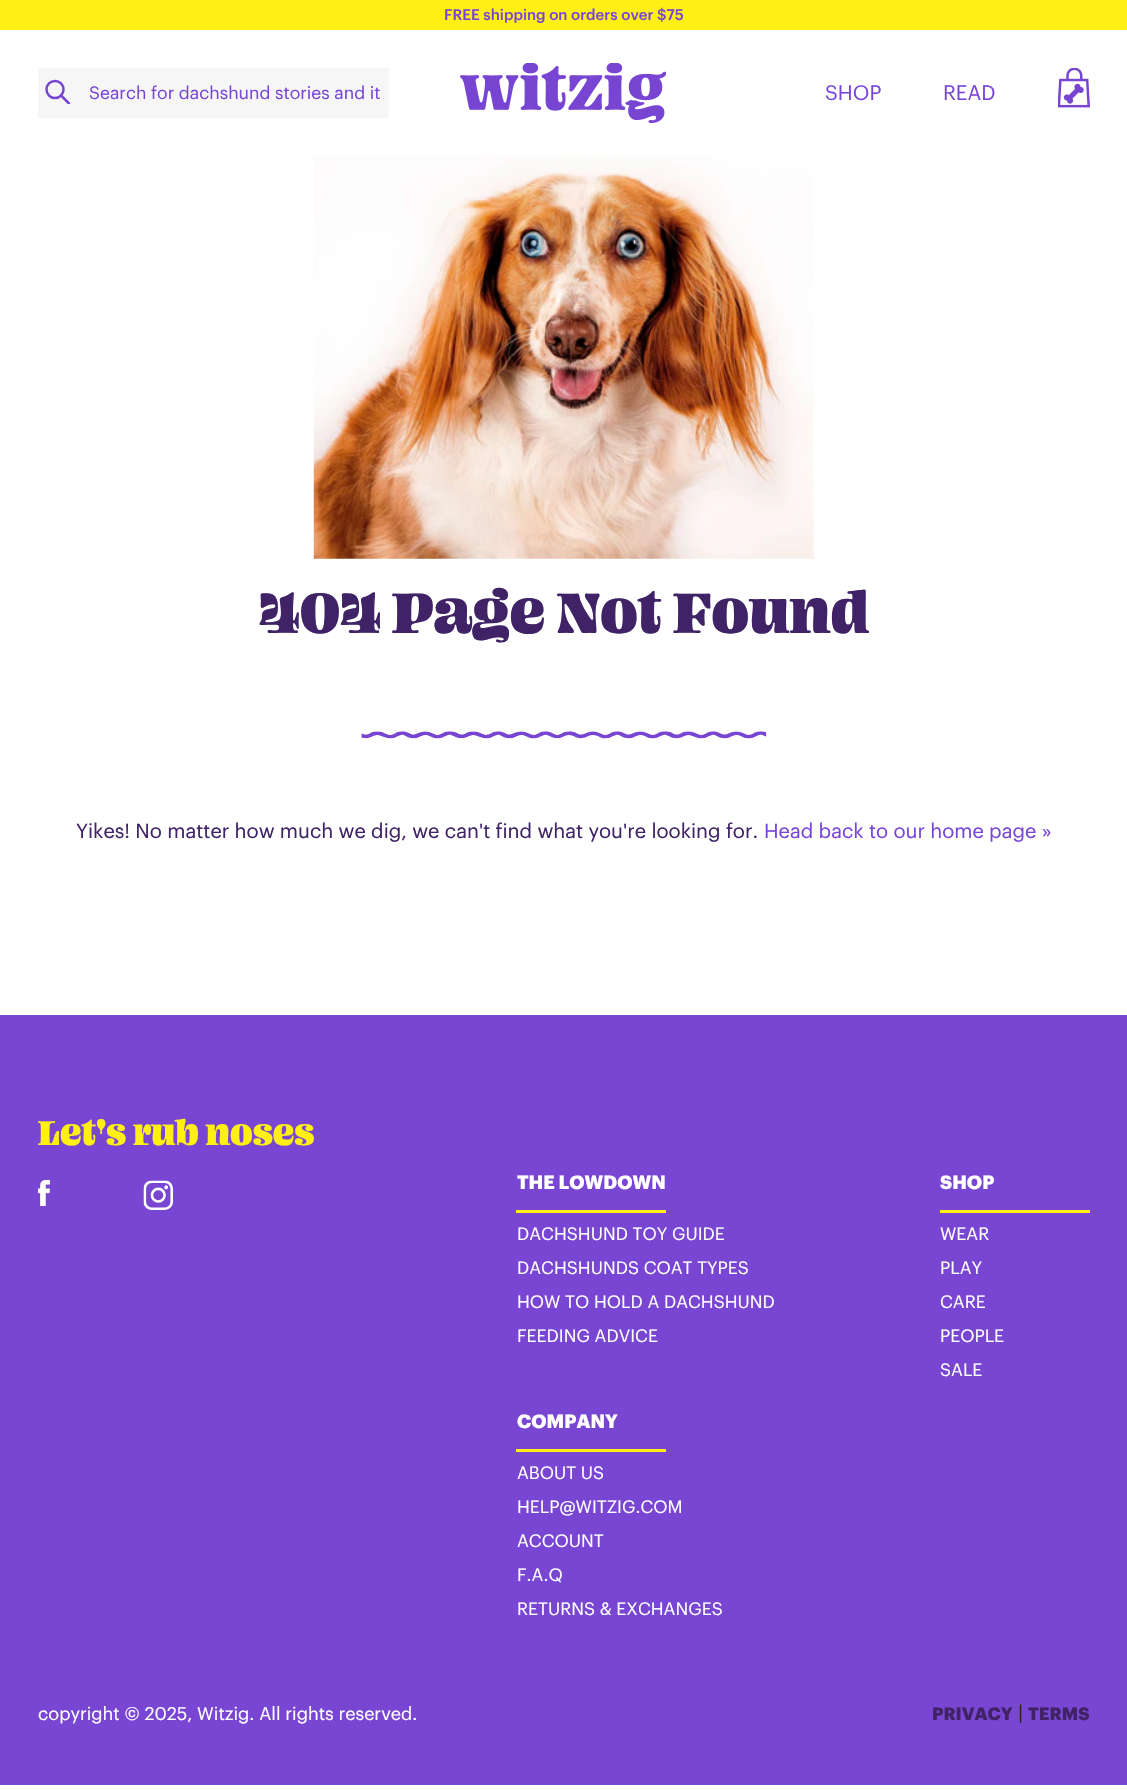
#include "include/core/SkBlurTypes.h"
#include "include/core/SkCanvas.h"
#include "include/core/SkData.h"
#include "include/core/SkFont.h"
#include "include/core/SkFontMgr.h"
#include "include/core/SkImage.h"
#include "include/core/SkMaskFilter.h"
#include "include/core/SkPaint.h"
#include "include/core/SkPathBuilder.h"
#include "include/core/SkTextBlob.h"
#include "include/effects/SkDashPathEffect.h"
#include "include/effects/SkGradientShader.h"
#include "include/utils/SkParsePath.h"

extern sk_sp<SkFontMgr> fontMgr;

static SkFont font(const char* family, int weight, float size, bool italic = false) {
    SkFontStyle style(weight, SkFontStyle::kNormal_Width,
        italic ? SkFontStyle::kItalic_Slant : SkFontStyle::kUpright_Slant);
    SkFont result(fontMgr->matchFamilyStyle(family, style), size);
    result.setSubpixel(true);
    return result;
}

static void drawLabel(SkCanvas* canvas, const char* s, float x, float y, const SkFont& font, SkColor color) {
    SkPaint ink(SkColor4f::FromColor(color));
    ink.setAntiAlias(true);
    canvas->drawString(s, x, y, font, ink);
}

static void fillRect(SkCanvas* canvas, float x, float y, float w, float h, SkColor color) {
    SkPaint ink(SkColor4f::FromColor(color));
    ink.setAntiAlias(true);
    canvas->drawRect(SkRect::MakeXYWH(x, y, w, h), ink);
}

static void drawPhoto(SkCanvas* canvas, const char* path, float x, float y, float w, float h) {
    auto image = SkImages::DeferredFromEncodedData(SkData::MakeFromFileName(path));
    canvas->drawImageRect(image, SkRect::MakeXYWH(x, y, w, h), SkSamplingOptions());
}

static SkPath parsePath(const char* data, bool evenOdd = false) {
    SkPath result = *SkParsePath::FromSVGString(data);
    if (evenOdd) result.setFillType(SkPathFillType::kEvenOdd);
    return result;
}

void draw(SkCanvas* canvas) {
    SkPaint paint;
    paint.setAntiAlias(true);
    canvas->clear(0xFFFFFFFF);
    fillRect(canvas, 0, 0, 1127, 30, 0xFFFFEF14);
    SkFont font1 = font("Graphik", 500, 15);
    drawLabel(canvas, "FREE shipping on orders over $75", 444, 20, font1, 0xFF7845D8);
    fillRect(canvas, 38, 68, 351, 50, 0xFFF6F6F6);
    paint.setStroke(true);
    paint.setStrokeWidth(2.5f);
    paint.setColor(0xFF7845D2);
    canvas->drawCircle(55, 89.5f, 8.5f, paint);
    canvas->save();
    canvas->clipRect(SkRect::MakeXYWH(45, 79, 25, 25));
    paint.setStrokeCap(SkPaint::kRound_Cap);
    canvas->drawPath(parsePath("M61 95.5L69 103.5"), paint);
    canvas->restore();
    SkFont font2 = font("Graphik", 400, 17.5f);
    drawLabel(canvas, "Search for dachshund stories and it", 89, 99, font2, 0xFF7845D8);
    drawPhoto(canvas, "assets/img1.png", 460, 63, 206, 60);
    SkFont font3 = font("Graphik", 400, 20.5f);
    drawLabel(canvas, "SHOP", 825, 100, font3, 0xFF7845D8);
    drawLabel(canvas, "READ", 943, 100, font3, 0xFF7845D8);
    drawPhoto(canvas, "assets/img2.png", 1058, 68, 32, 40);
    drawPhoto(canvas, "assets/img3.png", 313, 155, 501, 404);
    SkFont font4 = font("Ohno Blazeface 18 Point", 400, 62.5f);
    drawLabel(canvas, "404 Page Not Found", 259, 633, font4, 0xFF402366);
    drawPhoto(canvas, "assets/img4.png", 361, 731, 406, 8);
    SkFont font5 = font("Graphik", 400, 20);
    drawLabel(canvas, "Yikes! No matter how much we dig, we can't find what you're looking for.", 76, 838, font5, 0xFF402366);
    drawLabel(canvas, "Head back to our home page »", 764, 838, font5, 0xFF7845D8);
    fillRect(canvas, 0, 1015, 1127, 770, 0xFF7846D2);
    SkFont font6 = font("Ohno Blazeface 18 Point", 400, 37.5f);
    drawLabel(canvas, "Let's rub noses", 38, 1145, font6, 0xFFFFEF14);
    drawPhoto(canvas, "assets/img5.png", 38, 1180, 12, 26);
    drawPhoto(canvas, "assets/img6.png", 143, 1180, 30, 30);
    fillRect(canvas, 516, 1210, 150, 3, 0xFFFFEF14);
    SkFont font7 = font("Graphik", 700, 18.75f);
    drawLabel(canvas, "THE LOWDOWN", 517, 1189, font7, 0xFFFFFFFF);
    SkFont font8 = font("Graphik", 400, 17.6f);
    drawLabel(canvas, "DACHSHUND TOY GUIDE", 517, 1240, font8, 0xFFFFFFFF);
    drawLabel(canvas, "DACHSHUNDS COAT TYPES", 517, 1274, font8, 0xFFFFFFFF);
    drawLabel(canvas, "HOW TO HOLD A DACHSHUND", 517, 1308, font8, 0xFFFFFFFF);
    drawLabel(canvas, "FEEDING ADVICE", 517, 1342, font8, 0xFFFFFFFF);
    fillRect(canvas, 940, 1210, 150, 3, 0xFFFFEF14);
    drawLabel(canvas, "SHOP", 940, 1189, font7, 0xFFFFFFFF);
    drawLabel(canvas, "WEAR", 940, 1240, font8, 0xFFFFFFFF);
    drawLabel(canvas, "PLAY", 940, 1274, font8, 0xFFFFFFFF);
    drawLabel(canvas, "CARE", 940, 1308, font8, 0xFFFFFFFF);
    drawLabel(canvas, "PEOPLE", 940, 1342, font8, 0xFFFFFFFF);
    drawLabel(canvas, "SALE", 940, 1376, font8, 0xFFFFFFFF);
    fillRect(canvas, 516, 1449, 150, 3, 0xFFFFEF14);
    drawLabel(canvas, "COMPANY", 517, 1428, font7, 0xFFFFFFFF);
    drawLabel(canvas, "ABOUT US", 517, 1479, font8, 0xFFFFFFFF);
    drawLabel(canvas, "HELP@WITZIG.COM", 517, 1513, font8, 0xFFFFFFFF);
    drawLabel(canvas, "ACCOUNT", 517, 1547, font8, 0xFFFFFFFF);
    drawLabel(canvas, "F.A.Q", 517, 1581, font8, 0xFFFFFFFF);
    drawLabel(canvas, "RETURNS & EXCHANGES", 517, 1615, font8, 0xFFFFFFFF);
    SkFont font9 = font("Graphik", 400, 18);
    drawLabel(canvas, "copyright © 2025, Witzig. All rights reserved.", 38, 1720, font9, 0xFFFFFFFF);
    SkFont font10 = font("Graphik", 700, 17.5f);
    drawLabel(canvas, "PRIVACY", 932, 1720, font10, 0xFF402366);
    drawLabel(canvas, "|", 1018, 1720, font5, 0xFF222323);
    drawLabel(canvas, "TERMS", 1028, 1720, font10, 0xFF402366);
}
